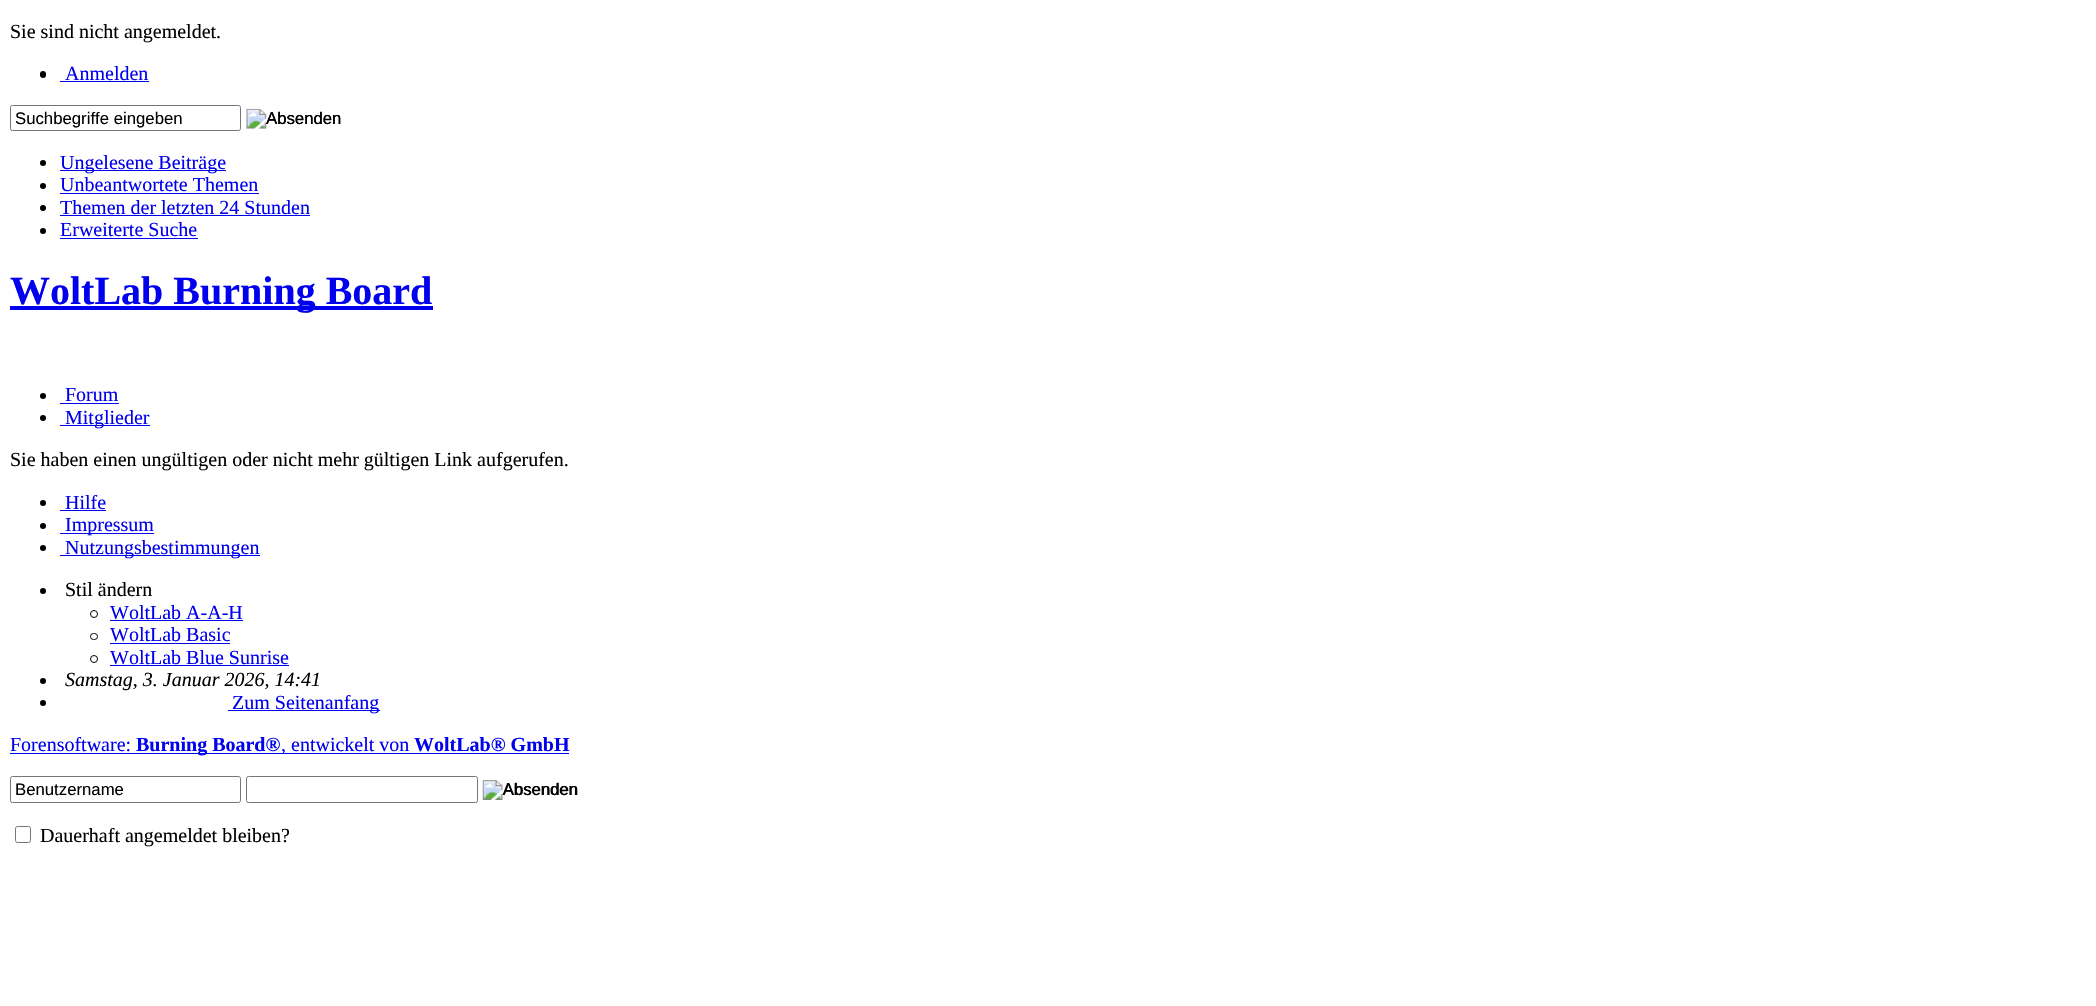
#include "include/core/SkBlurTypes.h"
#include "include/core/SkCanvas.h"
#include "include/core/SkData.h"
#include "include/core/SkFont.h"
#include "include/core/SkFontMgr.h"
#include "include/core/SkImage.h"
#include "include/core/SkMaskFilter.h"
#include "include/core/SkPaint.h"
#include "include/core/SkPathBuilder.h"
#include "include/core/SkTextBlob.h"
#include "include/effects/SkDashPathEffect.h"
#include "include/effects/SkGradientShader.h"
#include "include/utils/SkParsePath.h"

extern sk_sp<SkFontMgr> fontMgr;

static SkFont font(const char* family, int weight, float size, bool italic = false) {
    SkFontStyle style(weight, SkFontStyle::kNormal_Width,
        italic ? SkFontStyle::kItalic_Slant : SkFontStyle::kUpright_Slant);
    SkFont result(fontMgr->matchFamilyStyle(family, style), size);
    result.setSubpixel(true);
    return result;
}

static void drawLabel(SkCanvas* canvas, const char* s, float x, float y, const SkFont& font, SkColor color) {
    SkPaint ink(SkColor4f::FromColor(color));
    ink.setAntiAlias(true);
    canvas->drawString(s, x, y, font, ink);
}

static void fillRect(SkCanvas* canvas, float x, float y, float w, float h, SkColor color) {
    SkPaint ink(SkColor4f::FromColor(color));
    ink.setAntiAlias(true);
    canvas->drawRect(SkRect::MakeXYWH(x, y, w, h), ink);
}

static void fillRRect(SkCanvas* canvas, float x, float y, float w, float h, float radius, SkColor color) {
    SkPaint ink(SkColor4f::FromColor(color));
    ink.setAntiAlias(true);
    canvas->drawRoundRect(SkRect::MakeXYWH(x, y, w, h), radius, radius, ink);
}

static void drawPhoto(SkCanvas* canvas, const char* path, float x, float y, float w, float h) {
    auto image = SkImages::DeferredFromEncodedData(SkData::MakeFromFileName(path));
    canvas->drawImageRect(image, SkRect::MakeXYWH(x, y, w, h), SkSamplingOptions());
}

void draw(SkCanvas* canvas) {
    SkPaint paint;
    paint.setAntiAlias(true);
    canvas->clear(0xFFFFFFFF);
    SkFont font1 = font("Liberation Serif", 400, 20);
    drawLabel(canvas, "Sie sind nicht angemeldet.", 10, 38, font1, 0xFF000000);
    fillRRect(canvas, 40, 71, 6, 7, 3, 0xFF000000);
    drawLabel(canvas, "Anmelden", 65, 80, font1, 0xFF0000EE);
    fillRect(canvas, 60, 81, 89, 1, 0xFF0000EE);
    paint.setStroke(true);
    paint.setStrokeWidth(1);
    paint.setColor(0xFF767676);
    canvas->drawRoundRect(SkRect::MakeXYWH(10.5f, 105.5f, 230, 25), 2, 2, paint);
    SkFont font2 = font("Liberation Sans", 400, 16.75f);
    drawLabel(canvas, "Suchbegriffe eingeben", 15, 124, font2, 0xFF000000);
    drawPhoto(canvas, "assets/img1.png", 246, 108, 95, 21);
    drawLabel(canvas, "Absenden", 266, 124, font2, 0xFF000000);
    paint.setStroke(false);
    paint.setColor(0xFF000000);
    canvas->drawCircle(43, 163, 3, paint);
    fillRect(canvas, 60, 170, 166, 1, 0xFF0000EE);
    drawLabel(canvas, "Ungelesene Beiträge", 60, 169, font1, 0xFF0000EE);
    canvas->drawCircle(43, 186, 3, paint);
    drawLabel(canvas, "Unbeantwortete Themen", 60, 191, font1, 0xFF0000EE);
    fillRect(canvas, 60, 193, 199, 1, 0xFF0000EE);
    canvas->drawCircle(43, 208, 3, paint);
    drawLabel(canvas, "Themen der letzten 24 Stunden", 60, 214, font1, 0xFF0000EE);
    fillRect(canvas, 60, 215, 250, 1, 0xFF0000EE);
    canvas->drawCircle(43, 231, 3, paint);
    drawLabel(canvas, "Erweiterte Suche", 60, 236, font1, 0xFF0000EE);
    fillRect(canvas, 60, 238, 138, 1, 0xFF0000EE);
    fillRect(canvas, 10, 306, 423, 4, 0xFF0000EE);
    SkFont font3 = font("Liberation Serif", 700, 40);
    drawLabel(canvas, "WoltLab Burning Board", 10, 304, font3, 0xFF0000EE);
    canvas->drawCircle(43, 396, 3, paint);
    drawLabel(canvas, "Forum", 65, 401, font1, 0xFF0000EE);
    fillRect(canvas, 60, 403, 59, 1, 0xFF0000EE);
    canvas->drawCircle(43, 418, 3, paint);
    fillRect(canvas, 60, 425, 90, 1, 0xFF0000EE);
    drawLabel(canvas, "Mitglieder", 65, 424, font1, 0xFF0000EE);
    drawLabel(canvas, "Sie haben einen ungültigen oder nicht mehr gültigen Link aufgerufen.", 10, 466, font1, 0xFF000000);
    canvas->drawCircle(43, 503, 3, paint);
    drawLabel(canvas, "Hilfe", 65, 509, font1, 0xFF0000EE);
    fillRect(canvas, 60, 510, 46, 1, 0xFF0000EE);
    canvas->drawCircle(43, 526, 3, paint);
    fillRect(canvas, 60, 533, 94, 1, 0xFF0000EE);
    drawLabel(canvas, "Impressum", 65, 531, font1, 0xFF0000EE);
    canvas->drawCircle(43, 548, 3, paint);
    fillRect(canvas, 60, 555, 200, 1, 0xFF0000EE);
    drawLabel(canvas, "Nutzungsbestimmungen", 65, 554, font1, 0xFF0000EE);
    canvas->drawCircle(43, 591, 3, paint);
    drawLabel(canvas, "Stil ändern", 65, 596, font1, 0xFF000000);
    paint.setStroke(true);
    canvas->drawCircle(94, 614, 3.5f, paint);
    drawLabel(canvas, "WoltLab A-A-H", 110, 619, font1, 0xFF0000EE);
    fillRect(canvas, 110, 620, 133, 1, 0xFF0000EE);
    canvas->drawRoundRect(SkRect::MakeXYWH(90.5f, 633.5f, 7, 6), 3, 3, paint);
    drawLabel(canvas, "WoltLab Basic", 110, 641, font1, 0xFF0000EE);
    fillRect(canvas, 110, 643, 120, 1, 0xFF0000EE);
    canvas->drawCircle(94, 659, 3.5f, paint);
    drawLabel(canvas, "WoltLab Blue Sunrise", 110, 664, font1, 0xFF0000EE);
    fillRect(canvas, 110, 665, 179, 1, 0xFF0000EE);
    paint.setStroke(false);
    canvas->drawCircle(43, 681, 3, paint);
    SkFont font4 = font("Liberation Serif", 400, 20, true);
    drawLabel(canvas, "Samstag, 3. Januar 2026, 14:41", 65, 686, font4, 0xFF000000);
    canvas->drawCircle(43, 703, 3, paint);
    fillRect(canvas, 228, 710, 152, 1, 0xFF0000EE);
    drawLabel(canvas, "Zum Seitenanfang", 232, 709, font1, 0xFF0000EE);
    drawLabel(canvas, "Forensoftware:", 10, 751, font1, 0xFF0000EE);
    fillRect(canvas, 10, 753, 559, 1, 0xFF0000EE);
    SkFont font5 = font("Liberation Serif", 700, 20);
    drawLabel(canvas, "Burning Board®", 136, 751, font5, 0xFF0000EE);
    drawLabel(canvas, ", entwickelt von", 281, 751, font1, 0xFF0000EE);
    drawLabel(canvas, "WoltLab® GmbH", 414, 751, font5, 0xFF0000EE);
    paint.setStroke(true);
    paint.setColor(0xFF767676);
    canvas->drawRoundRect(SkRect::MakeXYWH(10.5f, 776.5f, 230, 26), 2, 2, paint);
    drawLabel(canvas, "Benutzername", 15, 795, font2, 0xFF000000);
    canvas->drawRoundRect(SkRect::MakeXYWH(246.5f, 776.5f, 231, 26), 2, 2, paint);
    drawPhoto(canvas, "assets/img2.png", 482, 780, 95, 20);
    drawLabel(canvas, "Absenden", 503, 795, font2, 0xFF000000);
    canvas->drawRoundRect(SkRect::MakeXYWH(15.5f, 826.5f, 15, 16), 2, 2, paint);
    drawLabel(canvas, "Dauerhaft angemeldet bleiben?", 40, 842, font1, 0xFF000000);
}
